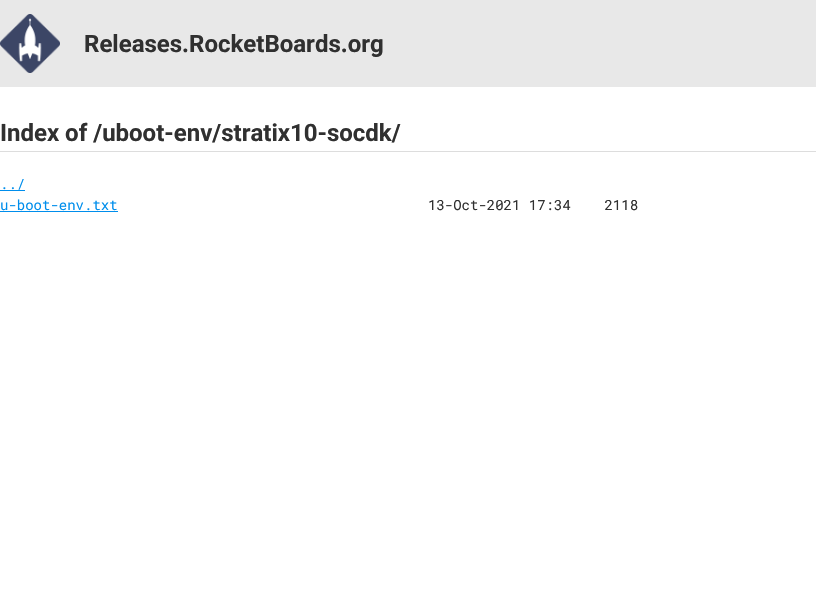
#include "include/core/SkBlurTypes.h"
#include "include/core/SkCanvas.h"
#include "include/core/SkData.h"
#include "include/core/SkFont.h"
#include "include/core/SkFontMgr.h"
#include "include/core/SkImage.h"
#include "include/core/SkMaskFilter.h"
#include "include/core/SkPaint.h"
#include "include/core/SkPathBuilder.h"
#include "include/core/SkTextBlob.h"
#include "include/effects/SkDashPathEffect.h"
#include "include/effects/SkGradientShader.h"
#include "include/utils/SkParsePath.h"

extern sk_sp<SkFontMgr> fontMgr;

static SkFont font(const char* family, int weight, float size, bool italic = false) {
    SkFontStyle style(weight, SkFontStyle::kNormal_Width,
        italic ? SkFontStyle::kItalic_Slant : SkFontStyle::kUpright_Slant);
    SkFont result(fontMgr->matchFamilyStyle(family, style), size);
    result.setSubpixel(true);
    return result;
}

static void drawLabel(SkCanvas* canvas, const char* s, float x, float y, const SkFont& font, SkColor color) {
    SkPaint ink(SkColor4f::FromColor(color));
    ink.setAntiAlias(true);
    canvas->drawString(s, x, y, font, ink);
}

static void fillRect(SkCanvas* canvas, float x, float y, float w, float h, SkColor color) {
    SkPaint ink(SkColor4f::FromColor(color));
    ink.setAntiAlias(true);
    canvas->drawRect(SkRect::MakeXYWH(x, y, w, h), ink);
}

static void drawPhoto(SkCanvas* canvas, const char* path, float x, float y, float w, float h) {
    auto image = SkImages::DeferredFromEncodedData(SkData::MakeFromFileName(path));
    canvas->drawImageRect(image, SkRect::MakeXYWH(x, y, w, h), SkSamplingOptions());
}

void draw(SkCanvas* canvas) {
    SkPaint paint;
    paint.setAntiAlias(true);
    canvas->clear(0xFFFFFFFF);
    fillRect(canvas, 0, 0, 816, 87, 0xFFE8E8E8);
    drawPhoto(canvas, "assets/img1.png", 0, 14, 60, 59);
    SkFont font1 = font("Roboto", 700, 24);
    drawLabel(canvas, "Releases.RocketBoards.org", 84, 52, font1, 0xFF303030);
    fillRect(canvas, 0, 151, 816, 1, 0xFFDDDDDD);
    drawLabel(canvas, "Index of /uboot-env/stratix10-socdk/", 0, 141, font1, 0xFF303030);
    SkFont font2 = font("Roboto Mono", 400, 14);
    drawLabel(canvas, "../", 0, 189, font2, 0xFF008EEC);
    fillRect(canvas, 0, 190, 25, 1, 0xFF008EEC);
    drawLabel(canvas, "u-boot-env.txt", 0, 210, font2, 0xFF008EEC);
    fillRect(canvas, 0, 211, 118, 1, 0xFF008EEC);
    drawLabel(canvas, "13-Oct-2021 17:34    2118", 428, 210, font2, 0xFF303030);
}
